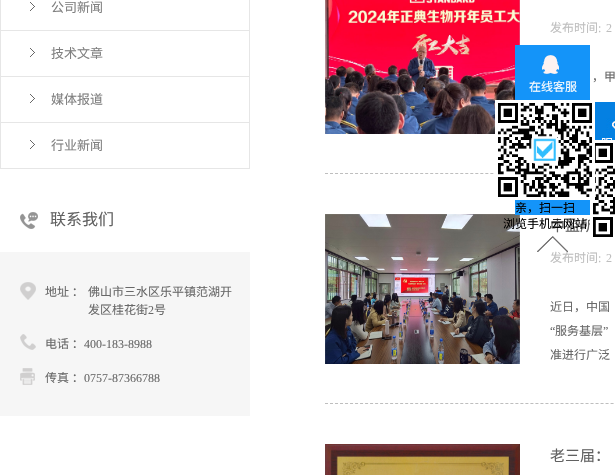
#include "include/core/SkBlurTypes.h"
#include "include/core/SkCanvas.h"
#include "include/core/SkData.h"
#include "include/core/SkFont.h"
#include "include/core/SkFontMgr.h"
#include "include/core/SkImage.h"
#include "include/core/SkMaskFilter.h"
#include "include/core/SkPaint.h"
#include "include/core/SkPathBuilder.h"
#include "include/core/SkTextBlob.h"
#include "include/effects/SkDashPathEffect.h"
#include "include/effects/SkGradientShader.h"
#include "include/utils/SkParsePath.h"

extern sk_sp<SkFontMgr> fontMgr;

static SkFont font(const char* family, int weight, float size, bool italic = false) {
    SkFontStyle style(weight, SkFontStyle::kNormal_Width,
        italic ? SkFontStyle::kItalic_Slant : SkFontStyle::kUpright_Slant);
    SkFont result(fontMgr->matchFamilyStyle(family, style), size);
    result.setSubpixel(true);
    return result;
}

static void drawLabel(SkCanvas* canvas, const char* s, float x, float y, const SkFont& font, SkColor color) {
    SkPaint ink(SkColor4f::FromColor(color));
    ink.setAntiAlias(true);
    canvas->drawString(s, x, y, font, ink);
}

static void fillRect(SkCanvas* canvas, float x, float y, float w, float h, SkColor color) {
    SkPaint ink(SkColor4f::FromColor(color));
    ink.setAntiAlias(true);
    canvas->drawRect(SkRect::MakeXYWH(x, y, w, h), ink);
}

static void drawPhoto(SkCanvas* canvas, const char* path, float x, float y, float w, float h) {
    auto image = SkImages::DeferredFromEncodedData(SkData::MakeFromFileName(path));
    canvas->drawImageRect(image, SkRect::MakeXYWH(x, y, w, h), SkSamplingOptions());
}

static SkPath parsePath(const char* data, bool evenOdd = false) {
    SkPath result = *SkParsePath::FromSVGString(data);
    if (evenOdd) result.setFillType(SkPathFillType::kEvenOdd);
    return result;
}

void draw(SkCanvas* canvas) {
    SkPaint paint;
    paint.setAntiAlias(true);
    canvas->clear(0xFFFFFFFF);
    fillRect(canvas, 249, 0, 1, 169, 0xFFE6E6E6);
    fillRect(canvas, 0, 0, 1, 169, 0xFFE6E6E6);
    drawPhoto(canvas, "assets/img1.png", 30, 2, 5, 9);
    fillRect(canvas, 1, 30, 248, 1, 0xFFE6E6E6);
    SkFont font1 = font("Noto Sans CJK SC", 400, 13);
    drawLabel(canvas, "公司新闻", 51, 12, font1, 0xFF808080);
    drawPhoto(canvas, "assets/img1.png", 30, 48, 5, 9);
    fillRect(canvas, 1, 76, 248, 1, 0xFFE6E6E6);
    drawLabel(canvas, "技术文章", 51, 58, font1, 0xFF808080);
    drawPhoto(canvas, "assets/img1.png", 30, 94, 5, 9);
    fillRect(canvas, 1, 122, 248, 1, 0xFFE6E6E6);
    drawLabel(canvas, "媒体报道", 51, 104, font1, 0xFF808080);
    drawPhoto(canvas, "assets/img1.png", 30, 140, 5, 9);
    fillRect(canvas, 1, 168, 248, 1, 0xFFE6E6E6);
    drawLabel(canvas, "行业新闻", 51, 150, font1, 0xFF808080);
    drawPhoto(canvas, "assets/img2.png", 20, 212, 18, 17);
    SkFont font2 = font("Noto Sans CJK SC", 400, 16);
    drawLabel(canvas, "联系我们", 50, 225, font2, 0xFF616161);
    fillRect(canvas, 0, 252, 250, 164, 0xFFF6F6F6);
    drawPhoto(canvas, "assets/img3.png", 20, 282, 16, 18);
    SkFont font3 = font("Noto Sans CJK SC", 400, 12);
    drawLabel(canvas, "地址 ：", 45, 296, font3, 0xFF686868);
    drawLabel(canvas, "佛山市三水区乐平镇范湖开", 88, 296, font3, 0xFF686868);
    drawLabel(canvas, "发区桂花街", 88, 314, font3, 0xFF686868);
    SkFont font4 = font("Liberation Serif", 400, 12);
    drawLabel(canvas, "2", 148, 314, font4, 0xFF686868);
    drawLabel(canvas, "号", 154, 314, font3, 0xFF686868);
    drawPhoto(canvas, "assets/img4.png", 20, 334, 16, 16);
    drawLabel(canvas, "电话 ：", 45, 348, font3, 0xFF686868);
    drawLabel(canvas, "400-183-8988", 84, 348, font4, 0xFF686868);
    drawPhoto(canvas, "assets/img5.png", 20, 368, 15, 17);
    drawLabel(canvas, "传真 ：", 45, 382, font3, 0xFF686868);
    drawLabel(canvas, "0757-87366788", 84, 382, font4, 0xFF686868);
    paint.setStroke(true);
    paint.setStrokeWidth(1);
    paint.setColor(0xFFBEBEBE);
    paint.setPathEffect(SkDashPathEffect::Make({{3, 2.01f}}, 0));
    canvas->drawPath(parsePath("M325 173.5H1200"), paint);
    paint.setPathEffect(nullptr);
    drawPhoto(canvas, "assets/img6.png", 325, 0, 195, 134);
    drawLabel(canvas, "发布时间", 550, 32, font3, 0xFFBEBEBE);
    drawLabel(canvas, ":", 598, 32, font4, 0xFFBEBEBE);
    drawLabel(canvas, "2", 606, 32, font4, 0xFFBEBEBE);
    drawLabel(canvas, "，甲", 592, 81, font3, 0xFF686868);
    paint.setPathEffect(SkDashPathEffect::Make({{3, 2.01f}}, 0));
    canvas->drawPath(parsePath("M325 403.5H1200"), paint);
    paint.setPathEffect(nullptr);
    drawPhoto(canvas, "assets/img7.png", 325, 214, 195, 150);
    SkFont font5 = font("Noto Sans CJK SC", 400, 15);
    drawLabel(canvas, "中监所", 550, 231, font5, 0xFF616161);
    drawLabel(canvas, "发布时间", 550, 262, font3, 0xFFBEBEBE);
    drawLabel(canvas, ":", 598, 262, font4, 0xFFBEBEBE);
    drawLabel(canvas, "2", 606, 262, font4, 0xFFBEBEBE);
    drawLabel(canvas, "近日，中国", 550, 311, font3, 0xFF686868);
    drawLabel(canvas, "“", 550, 335, font4, 0xFF686868);
    drawLabel(canvas, "服务基层", 555, 335, font3, 0xFF686868);
    drawLabel(canvas, "”", 603, 335, font4, 0xFF686868);
    drawLabel(canvas, "准进行广泛", 550, 359, font3, 0xFF686868);
    drawPhoto(canvas, "assets/img8.png", 325, 444, 195, 31);
    drawLabel(canvas, "老三届：", 550, 461, font5, 0xFF616161);
    fillRect(canvas, 515, 45, 75, 55, 0xFF1494F9);
    drawPhoto(canvas, "assets/img9.png", 542, 55, 17, 19);
    drawLabel(canvas, "在线客服", 529, 91, font3, 0xFFFDFDFD);
    drawPhoto(canvas, "assets/img10.png", 595, 102, 20, 38);
    fillRect(canvas, 515, 200, 75, 15, 0xFF1494F9);
    drawPhoto(canvas, "assets/img11.png", 590, 140, 25, 97);
    drawPhoto(canvas, "assets/img12.png", 537, 236, 31, 16);
    drawPhoto(canvas, "assets/img13.png", 495, 100, 100, 100);
    drawLabel(canvas, "亲，扫一扫", 515, 212, font3, 0xFF000000);
    drawLabel(canvas, "浏览手机云网站", 503, 228, font3, 0xFF000000);
}
